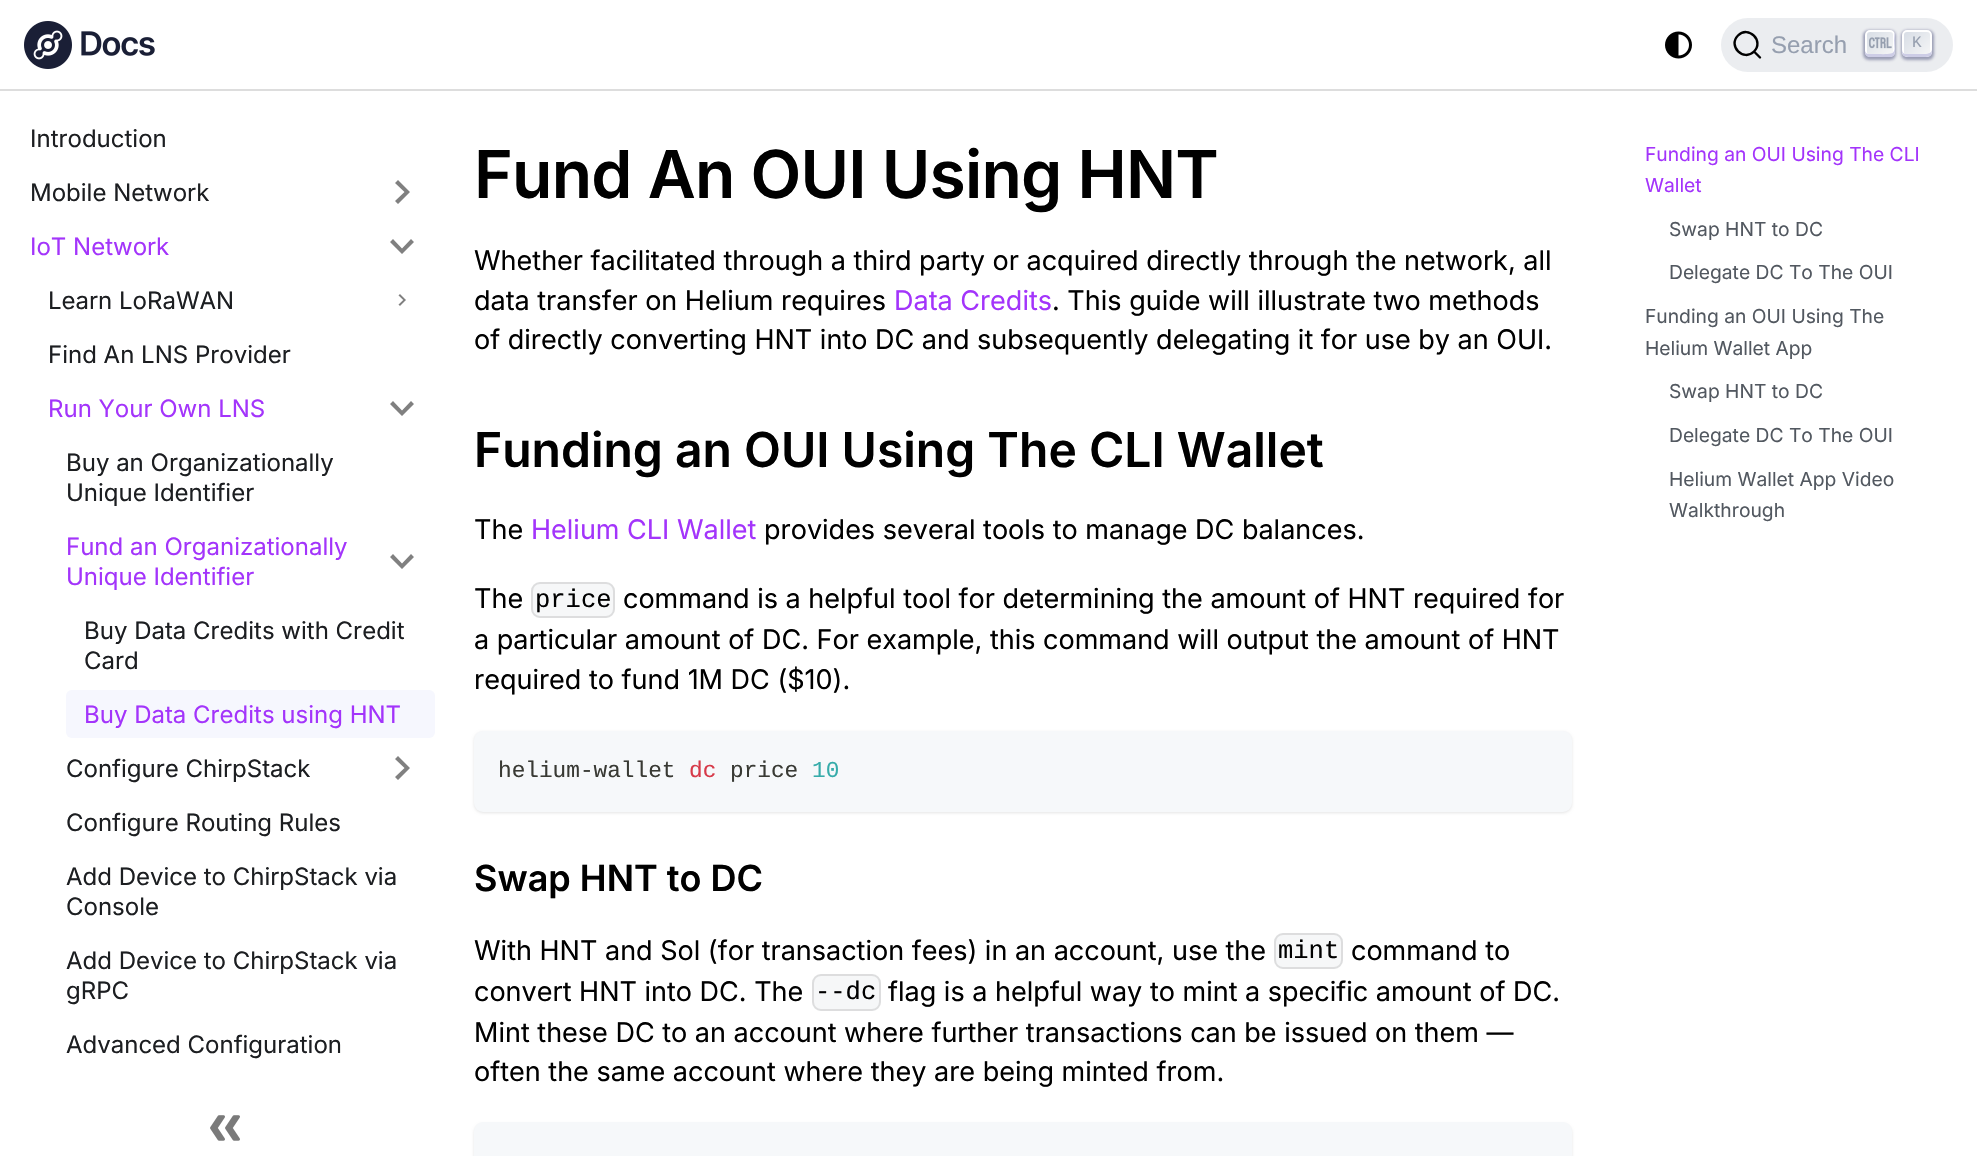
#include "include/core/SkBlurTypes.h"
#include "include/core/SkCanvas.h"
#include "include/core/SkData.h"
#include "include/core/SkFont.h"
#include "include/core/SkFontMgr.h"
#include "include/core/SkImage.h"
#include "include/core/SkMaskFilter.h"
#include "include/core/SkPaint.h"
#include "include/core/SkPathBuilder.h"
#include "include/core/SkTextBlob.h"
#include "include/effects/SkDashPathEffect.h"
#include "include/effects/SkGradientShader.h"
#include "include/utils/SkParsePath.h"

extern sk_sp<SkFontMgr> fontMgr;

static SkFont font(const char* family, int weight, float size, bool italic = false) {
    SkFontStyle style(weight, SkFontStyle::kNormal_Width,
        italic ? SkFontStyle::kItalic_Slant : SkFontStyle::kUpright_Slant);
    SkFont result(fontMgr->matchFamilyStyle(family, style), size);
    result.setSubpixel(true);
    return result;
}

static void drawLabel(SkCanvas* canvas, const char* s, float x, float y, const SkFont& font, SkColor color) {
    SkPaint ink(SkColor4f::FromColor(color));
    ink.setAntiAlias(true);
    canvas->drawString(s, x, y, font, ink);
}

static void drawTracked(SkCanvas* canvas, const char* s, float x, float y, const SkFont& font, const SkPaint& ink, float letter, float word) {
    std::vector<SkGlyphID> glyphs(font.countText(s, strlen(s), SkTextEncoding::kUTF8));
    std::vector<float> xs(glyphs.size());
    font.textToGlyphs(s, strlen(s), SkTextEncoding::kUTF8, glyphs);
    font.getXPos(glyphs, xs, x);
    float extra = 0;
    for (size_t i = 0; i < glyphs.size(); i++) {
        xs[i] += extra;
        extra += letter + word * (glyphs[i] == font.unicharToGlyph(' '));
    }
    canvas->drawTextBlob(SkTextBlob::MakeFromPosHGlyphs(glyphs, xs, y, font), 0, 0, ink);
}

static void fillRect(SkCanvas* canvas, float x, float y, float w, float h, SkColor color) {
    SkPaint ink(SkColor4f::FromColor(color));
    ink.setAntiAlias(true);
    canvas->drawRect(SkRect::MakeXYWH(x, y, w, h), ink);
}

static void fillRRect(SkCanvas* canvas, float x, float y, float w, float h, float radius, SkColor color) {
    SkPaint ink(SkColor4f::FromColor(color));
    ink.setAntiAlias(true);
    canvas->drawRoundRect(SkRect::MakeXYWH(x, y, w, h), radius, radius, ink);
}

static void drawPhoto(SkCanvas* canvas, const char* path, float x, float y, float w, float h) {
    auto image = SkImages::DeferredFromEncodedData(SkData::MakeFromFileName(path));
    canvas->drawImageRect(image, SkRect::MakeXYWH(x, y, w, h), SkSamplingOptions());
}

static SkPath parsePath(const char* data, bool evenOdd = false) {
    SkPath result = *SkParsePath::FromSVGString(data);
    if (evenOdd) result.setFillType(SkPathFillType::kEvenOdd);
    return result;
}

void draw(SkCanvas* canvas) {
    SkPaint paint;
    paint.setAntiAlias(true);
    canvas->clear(0xFFFFFFFF);
    fillRect(canvas, 0, 89, 1977, 2, 0xFFDDDDDD);
    drawPhoto(canvas, "assets/img1.png", 24, 21, 131, 48);
    drawPhoto(canvas, "assets/img2.png", 1665, 31, 27, 28);
    fillRRect(canvas, 1721, 18, 232, 54, 27, 0xFFEBEDF0);
    paint.setStroke(true);
    paint.setStrokeWidth(2.4f);
    paint.setStrokeCap(SkPaint::kRound_Cap);
    paint.setStrokeJoin(SkPaint::kRound_Join);
    paint.setColor(0xFF000000);
    canvas->drawPath(parsePath("M1754 51.5L1760 57.5L1754 51.5C1743.5 62 1727.5 46 1738 35.5C1748.5 25 1764.5 41 1754 51.5Z"), paint);
    SkFont font1 = font("Liberation Sans", 400, 24);
    drawLabel(canvas, "Search", 1771, 53, font1, 0xFF969FAF);
    paint.setStroke(false);
    paint.setColor(0x661E235A);
    paint.setMaskFilter(SkMaskFilter::MakeBlur(kNormal_SkBlurStyle, 1.5f));
    canvas->drawRoundRect(SkRect::MakeXYWH(1863, 30, 33, 30), 6, 6, paint);
    paint.setMaskFilter(nullptr);
    {
        const SkColor colors[] = {0xFFD5DBE4, 0xFFF8F8F8};
        const float stops[] = {0, 1};
        const SkPoint ends[] = {{1865, 29}, {1894, 58}};
        paint.setShader(SkGradientShader::MakeLinear(ends, colors, stops, 2, SkTileMode::kClamp));
        paint.setAlpha(255);
    }
    canvas->drawRoundRect(SkRect::MakeXYWH(1866, 31, 28, 25), 4, 4, paint);
    paint.setStroke(true);
    paint.setStrokeWidth(2);
    paint.setStrokeCap(SkPaint::kButt_Cap);
    paint.setStrokeJoin(SkPaint::kMiter_Join);
    paint.setShader(nullptr);
    paint.setColor(0xFFFFFFFF);
    canvas->drawRoundRect(SkRect::MakeXYWH(1866, 31, 28, 25), 4, 4, paint);
    paint.setStroke(false);
    paint.setColor(0xFFCDCDE6);
    canvas->drawPath(parsePath("M1865 51V52C1865 55 1867 57 1870 57H1890C1893 57 1895 55 1895 52V35C1895 34 1895 33.5 1894.5 32.5L1894 40.5L1894.5 49C1894.5 50 1894 51 1893.5 52C1893 53 1892 53 1891 53.5C1887 54.5 1879.5 54 1874.5 54H1867.5C1866.5 53.5 1865.5 52.5 1865 51Z"), paint);
    drawPhoto(canvas, "assets/img3.png", 1869, 37, 23, 12);
    paint.setColor(0x661E235A);
    paint.setMaskFilter(SkMaskFilter::MakeBlur(kNormal_SkBlurStyle, 1.5f));
    canvas->drawRoundRect(SkRect::MakeXYWH(1901, 30, 33, 30), 6, 6, paint);
    paint.setMaskFilter(nullptr);
    {
        const SkColor colors[] = {0xFFD5DBE4, 0xFFF8F8F8};
        const float stops[] = {0, 1};
        const SkPoint ends[] = {{1903, 29}, {1931, 58}};
        paint.setShader(SkGradientShader::MakeLinear(ends, colors, stops, 2, SkTileMode::kClamp));
        paint.setAlpha(255);
    }
    canvas->drawRoundRect(SkRect::MakeXYWH(1903, 31, 28, 25), 4, 4, paint);
    paint.setStroke(true);
    paint.setShader(nullptr);
    paint.setColor(0xFFFFFFFF);
    canvas->drawRoundRect(SkRect::MakeXYWH(1903, 31, 28, 25), 4, 4, paint);
    paint.setStroke(false);
    paint.setColor(0xFFCDCDE6);
    canvas->drawPath(parsePath("M1932 49.5C1931.5 52.5 1929.5 54 1924 54H1906C1903.5 54 1902.5 52.5 1902 50C1902 56.5 1904.5 57 1910.5 57H1923.5C1930 57 1932 56.5 1932 49.5Z"), paint);
    SkFont font2 = font("Liberation Mono", 400, 16);
    drawLabel(canvas, "K", 1912, 47, font2, 0xFF969FAF);
    SkFont font3 = font("Inter", 400, 24);
    drawLabel(canvas, "Introduction", 30, 147, font3, 0xFF1C1E21);
    drawLabel(canvas, "Mobile Network", 30, 201, font3, 0xFF1C1E21);
    paint.setColor(0xFF808080);
    canvas->drawPath(parsePath("M395 183L404.5 192L395 201L398 204L410 192L398 180Z"), paint);
    drawLabel(canvas, "IoT Network", 30, 255, font3, 0xFFA334FB);
    canvas->drawPath(parsePath("M411 239L402 248.5L393 239L390 242L402 254L414 242Z"), paint);
    drawLabel(canvas, "Learn LoRaWAN", 48, 309, font3, 0xFF1C1E21);
    drawPhoto(canvas, "assets/img4.png", 398, 294, 8, 12);
    drawLabel(canvas, "Find An LNS Provider", 48, 363, font3, 0xFF1C1E21);
    drawLabel(canvas, "Run Your Own LNS", 48, 417, font3, 0xFFA334FB);
    canvas->drawPath(parsePath("M411 401L402 410.5L393 401L390 404L402 416L414 404Z"), paint);
    drawLabel(canvas, "Buy an Organizationally", 66, 471, font3, 0xFF1C1E21);
    drawLabel(canvas, "Unique Identifier", 66, 501, font3, 0xFF1C1E21);
    drawLabel(canvas, "Fund an Organizationally", 66, 555, font3, 0xFFA334FB);
    drawLabel(canvas, "Unique Identifier", 66, 585, font3, 0xFFA334FB);
    canvas->drawPath(parsePath("M411 554L402 563.5L393 554L390 557L402 569L414 557Z"), paint);
    drawLabel(canvas, "Buy Data Credits with Credit", 84, 639, font3, 0xFF1C1E21);
    drawLabel(canvas, "Card", 84, 669, font3, 0xFF1C1E21);
    fillRRect(canvas, 66, 690, 369, 48, 6, 0xFFF6F7FE);
    drawLabel(canvas, "Buy Data Credits using HNT", 84, 723, font3, 0xFFA334FB);
    drawLabel(canvas, "Configure ChirpStack", 66, 777, font3, 0xFF1C1E21);
    canvas->drawPath(parsePath("M395 759L404.5 768L395 777L398 780L410 768L398 756Z"), paint);
    drawLabel(canvas, "Configure Routing Rules", 66, 831, font3, 0xFF1C1E21);
    drawLabel(canvas, "Add Device to ChirpStack via", 66, 885, font3, 0xFF1C1E21);
    drawLabel(canvas, "Console", 66, 915, font3, 0xFF1C1E21);
    drawLabel(canvas, "Add Device to ChirpStack via", 66, 969, font3, 0xFF1C1E21);
    drawLabel(canvas, "gRPC", 66, 999, font3, 0xFF1C1E21);
    drawLabel(canvas, "Advanced Configuration", 66, 1053, font3, 0xFF1C1E21);
    drawPhoto(canvas, "assets/img5.png", 210, 1115, 30, 26);
    SkFont font4 = font("Inter", 600, 66);
    paint.setColor(0xFF000000);
    drawTracked(canvas, "Fund An OUI Using HNT", 474, 198, font4, paint, -0.75f, 0);
    SkFont font5 = font("Inter", 400, 27);
    drawLabel(canvas, "Whether facilitated through a third party or acquired directly through the network, all", 474, 270, font5, 0xFF000000);
    drawLabel(canvas, "data transfer on Helium requires", 474, 310, font5, 0xFF000000);
    drawLabel(canvas, "Data Credits", 894, 310, font5, 0xFFA334FB);
    drawLabel(canvas, ". This guide will illustrate two methods", 1052, 310, font5, 0xFF000000);
    drawLabel(canvas, "of directly converting HNT into DC and subsequently delegating it for use by an OUI.", 474, 349, font5, 0xFF000000);
    SkFont font6 = font("Inter", 600, 48);
    drawLabel(canvas, "Funding an OUI Using The CLI Wallet", 474, 467, font6, 0xFF000000);
    drawLabel(canvas, "The", 474, 539, font5, 0xFF000000);
    drawLabel(canvas, "Helium CLI Wallet", 531, 539, font5, 0xFFA334FB);
    drawLabel(canvas, "provides several tools to manage DC balances.", 764, 539, font5, 0xFF000000);
    drawLabel(canvas, "The", 474, 608, font5, 0xFF000000);
    fillRRect(canvas, 531, 582, 84, 36, 9, 0xFFF6F7F8);
    paint.setStroke(true);
    paint.setColor(0x1A000000);
    canvas->drawRoundRect(SkRect::MakeXYWH(532, 583, 82, 34), 8, 8, paint);
    SkFont font7 = font("Liberation Mono", 400, 25.5f);
    drawLabel(canvas, "price", 535, 607, font7, 0xFF000000);
    drawLabel(canvas, "command is a helpful tool for determining the amount of HNT required for", 623, 608, font5, 0xFF000000);
    drawLabel(canvas, "a particular amount of DC. For example, this command will output the amount of HNT", 474, 649, font5, 0xFF000000);
    drawLabel(canvas, "required to fund 1M DC ($10).", 474, 689, font5, 0xFF000000);
    paint.setStroke(false);
    paint.setMaskFilter(SkMaskFilter::MakeBlur(kNormal_SkBlurStyle, 1.5f));
    canvas->drawRoundRect(SkRect::MakeXYWH(474, 732, 1098, 81), 9, 9, paint);
    paint.setMaskFilter(nullptr);
    fillRRect(canvas, 474, 731, 1098, 81, 9, 0xFFF6F8FA);
    SkFont font8 = font("Liberation Mono", 400, 22.75f);
    drawLabel(canvas, "helium-wallet", 498, 777, font8, 0xFF393A34);
    drawLabel(canvas, "dc", 689, 777, font8, 0xFFD73A49);
    drawLabel(canvas, "price", 730, 777, font8, 0xFF393A34);
    drawLabel(canvas, "10", 812, 777, font8, 0xFF36ACAA);
    SkFont font9 = font("Inter", 600, 36);
    drawLabel(canvas, "Swap HNT to DC", 474, 891, font9, 0xFF000000);
    drawLabel(canvas, "With HNT and Sol (for transaction fees) in an account, use the", 474, 960, font5, 0xFF000000);
    fillRRect(canvas, 1274, 933, 69, 36, 9, 0xFFF6F7F8);
    paint.setStroke(true);
    canvas->drawRoundRect(SkRect::MakeXYWH(1275, 934, 67, 34), 8, 8, paint);
    drawLabel(canvas, "mint", 1278, 958, font7, 0xFF000000);
    drawLabel(canvas, "command to", 1351, 960, font5, 0xFF000000);
    drawLabel(canvas, "convert HNT into DC. The", 474, 1001, font5, 0xFF000000);
    fillRRect(canvas, 812, 974, 69, 37, 9, 0xFFF6F7F8);
    canvas->drawRoundRect(SkRect::MakeXYWH(813, 975, 67, 35), 8, 8, paint);
    drawLabel(canvas, "--dc", 815, 999, font7, 0xFF000000);
    drawLabel(canvas, "flag is a helpful way to mint a specific amount of DC.", 888, 1001, font5, 0xFF000000);
    drawLabel(canvas, "Mint these DC to an account where further transactions can be issued on them —", 474, 1042, font5, 0xFF000000);
    drawLabel(canvas, "often the same account where they are being minted from.", 474, 1081, font5, 0xFF000000);
    paint.setStroke(false);
    paint.setMaskFilter(SkMaskFilter::MakeBlur(kNormal_SkBlurStyle, 1.5f));
    canvas->drawRoundRect(SkRect::MakeXYWH(474, 1124, 1098, 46), 9, 9, paint);
    paint.setMaskFilter(nullptr);
    fillRRect(canvas, 474, 1122, 1098, 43, 9, 0xFFF6F8FA);
    SkFont font10 = font("Inter", 400, 19.25f);
    drawLabel(canvas, "Funding an OUI Using The CLI", 1645, 161, font10, 0xFFA334FB);
    drawLabel(canvas, "Wallet", 1645, 192, font10, 0xFFA334FB);
    drawLabel(canvas, "Swap HNT to DC", 1669, 236, font10, 0xFF525860);
    drawLabel(canvas, "Delegate DC To The OUI", 1669, 279, font10, 0xFF525860);
    drawLabel(canvas, "Funding an OUI Using The", 1645, 323, font10, 0xFF525860);
    drawLabel(canvas, "Helium Wallet App", 1645, 355, font10, 0xFF525860);
    drawLabel(canvas, "Swap HNT to DC", 1669, 398, font10, 0xFF525860);
    drawLabel(canvas, "Delegate DC To The OUI", 1669, 442, font10, 0xFF525860);
    drawLabel(canvas, "Helium Wallet App Video", 1669, 486, font10, 0xFF525860);
    drawLabel(canvas, "Walkthrough", 1669, 517, font10, 0xFF525860);
}
